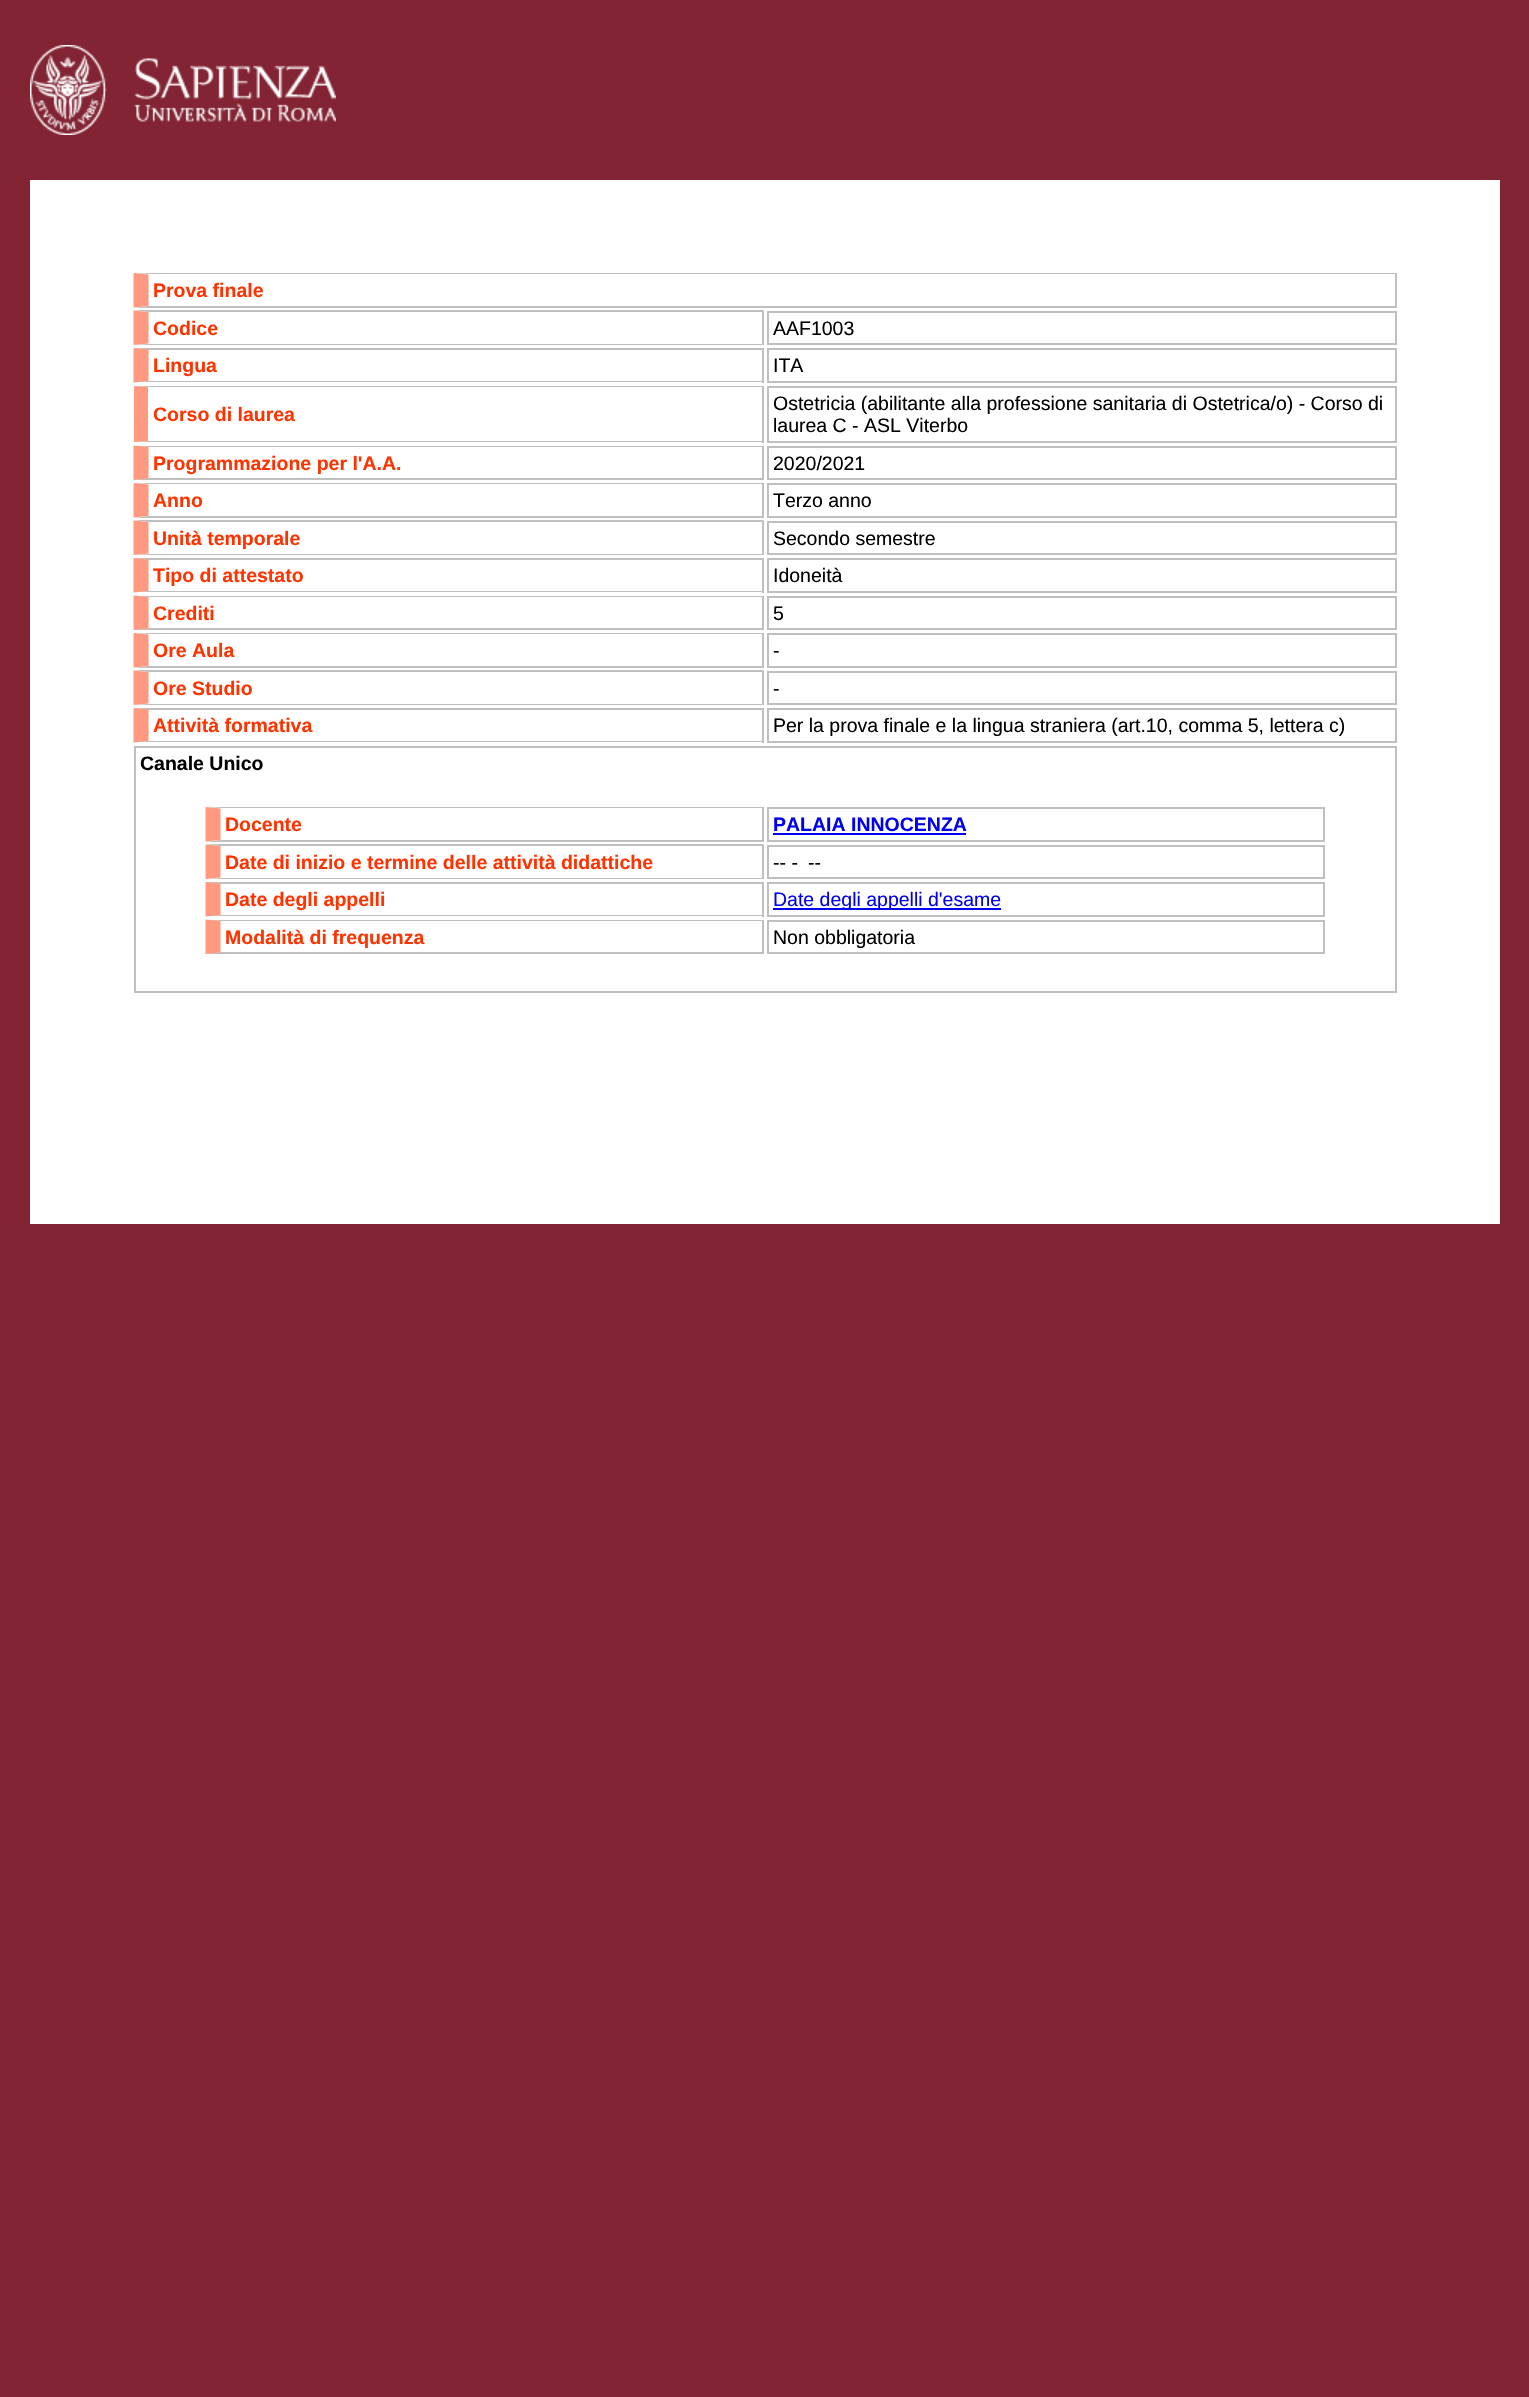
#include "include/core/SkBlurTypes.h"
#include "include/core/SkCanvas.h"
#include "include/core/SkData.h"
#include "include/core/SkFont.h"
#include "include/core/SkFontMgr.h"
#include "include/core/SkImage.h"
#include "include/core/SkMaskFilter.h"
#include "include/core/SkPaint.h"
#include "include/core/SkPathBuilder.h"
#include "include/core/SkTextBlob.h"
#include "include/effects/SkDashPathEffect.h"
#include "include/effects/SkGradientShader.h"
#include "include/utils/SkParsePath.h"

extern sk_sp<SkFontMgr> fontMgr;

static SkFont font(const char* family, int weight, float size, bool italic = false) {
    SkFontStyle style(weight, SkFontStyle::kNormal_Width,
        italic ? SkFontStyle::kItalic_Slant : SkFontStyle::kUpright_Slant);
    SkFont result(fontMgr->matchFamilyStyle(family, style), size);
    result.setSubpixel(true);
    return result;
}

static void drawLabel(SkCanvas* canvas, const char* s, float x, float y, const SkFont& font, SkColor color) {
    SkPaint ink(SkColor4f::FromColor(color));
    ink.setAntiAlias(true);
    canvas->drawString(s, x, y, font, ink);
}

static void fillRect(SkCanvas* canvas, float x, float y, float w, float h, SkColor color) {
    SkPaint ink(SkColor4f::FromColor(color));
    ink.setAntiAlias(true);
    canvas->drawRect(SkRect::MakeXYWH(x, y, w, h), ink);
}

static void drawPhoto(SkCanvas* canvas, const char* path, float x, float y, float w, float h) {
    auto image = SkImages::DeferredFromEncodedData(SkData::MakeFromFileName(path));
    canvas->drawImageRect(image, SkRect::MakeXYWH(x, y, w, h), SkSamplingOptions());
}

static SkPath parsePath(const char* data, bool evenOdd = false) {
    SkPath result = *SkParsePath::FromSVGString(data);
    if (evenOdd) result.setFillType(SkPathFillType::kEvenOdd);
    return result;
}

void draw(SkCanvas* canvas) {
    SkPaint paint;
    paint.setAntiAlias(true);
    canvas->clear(0xFF822433);
    drawPhoto(canvas, "assets/img1.png", 30, 45, 306, 90);
    fillRect(canvas, 30, 180, 1470, 1044, 0xFFFFFFFF);
    paint.setColor(0xFFBFBFBF);
    canvas->drawPath(parsePath("M134 273H1396L1395 274H148Z"), paint);
    fillRect(canvas, 1395, 273, 2, 35, 0xFFBFBFBF);
    canvas->drawPath(parsePath("M1396 308H134L148 306H1395Z"), paint);
    paint.setColor(0xFFFF9A80);
    canvas->drawPath(parsePath("M133.5 307.5V273L148.5 274.5V306Z"), paint);
    SkFont font1 = font("Liberation Sans", 700, 19.5f);
    drawLabel(canvas, "Prova finale", 153, 297, font1, 0xFFFF3300);
    paint.setColor(0xFFBFBFBF);
    canvas->drawPath(parsePath("M134 310H764L762 312H148Z"), paint);
    fillRect(canvas, 762, 311, 2, 34, 0xFFBFBFBF);
    canvas->drawPath(parsePath("M764 345H134L148 344H762Z"), paint);
    paint.setColor(0xFFFF9A80);
    canvas->drawPath(parsePath("M133.5 345V310.5L148.5 312V343.5Z"), paint);
    drawLabel(canvas, "Codice", 153, 335, font1, 0xFFFF3300);
    paint.setStroke(true);
    paint.setStrokeWidth(2);
    paint.setColor(0xFFBFBFBF);
    canvas->drawRect(SkRect::MakeXYWH(768, 312, 628, 32), paint);
    SkFont font2 = font("Liberation Sans", 400, 19.5f);
    drawLabel(canvas, "AAF1003", 773, 335, font2, 0xFF000000);
    paint.setStroke(false);
    canvas->drawPath(parsePath("M134 348H764L762 350H148Z"), paint);
    fillRect(canvas, 762, 348, 2, 35, 0xFFBFBFBF);
    canvas->drawPath(parsePath("M764 382H134L148 381H762Z"), paint);
    paint.setColor(0xFFFF9A80);
    canvas->drawPath(parsePath("M133.5 382.5V348L148.5 349.5V381Z"), paint);
    drawLabel(canvas, "Lingua", 153, 372, font1, 0xFFFF3300);
    paint.setStroke(true);
    paint.setColor(0xFFBFBFBF);
    canvas->drawRect(SkRect::MakeXYWH(768, 349, 628, 33), paint);
    drawLabel(canvas, "ITA", 773, 372, font2, 0xFF000000);
    paint.setStroke(false);
    canvas->drawPath(parsePath("M134 386H764L762 387H148Z"), paint);
    fillRect(canvas, 762, 386, 2, 57, 0xFFBFBFBF);
    canvas->drawPath(parsePath("M764 442H134L148 441H762Z"), paint);
    paint.setColor(0xFFFF9A80);
    canvas->drawPath(parsePath("M134 442V386L148 387V441Z"), paint);
    drawLabel(canvas, "Corso di laurea", 153, 421, font1, 0xFFFF3300);
    paint.setStroke(true);
    paint.setColor(0xFFBFBFBF);
    canvas->drawRect(SkRect::MakeXYWH(768, 387, 628, 55), paint);
    drawLabel(canvas, "Ostetricia (abilitante alla professione sanitaria di Ostetrica/o) - Corso di", 773, 410, font2, 0xFF000000);
    drawLabel(canvas, "laurea C - ASL Viterbo", 773, 432, font2, 0xFF000000);
    paint.setStroke(false);
    canvas->drawPath(parsePath("M134 446H764L762 447H148Z"), paint);
    fillRect(canvas, 762, 446, 2, 34, 0xFFBFBFBF);
    canvas->drawPath(parsePath("M764 480H134L148 478H762Z"), paint);
    paint.setColor(0xFFFF9A80);
    canvas->drawPath(parsePath("M133.5 480V445.5L148.5 447V478.5Z"), paint);
    drawLabel(canvas, "Programmazione per l'A.A.", 153, 470, font1, 0xFFFF3300);
    paint.setStroke(true);
    paint.setColor(0xFFBFBFBF);
    canvas->drawRect(SkRect::MakeXYWH(768, 447, 628, 32), paint);
    drawLabel(canvas, "2020/2021", 773, 470, font2, 0xFF000000);
    paint.setStroke(false);
    canvas->drawPath(parsePath("M134 483H764L762 484H148Z"), paint);
    fillRect(canvas, 762, 483, 2, 35, 0xFFBFBFBF);
    canvas->drawPath(parsePath("M764 518H134L148 516H762Z"), paint);
    paint.setColor(0xFFFF9A80);
    canvas->drawPath(parsePath("M133.5 517.5V483L148.5 484.5V516Z"), paint);
    drawLabel(canvas, "Anno", 153, 507, font1, 0xFFFF3300);
    paint.setStroke(true);
    paint.setColor(0xFFBFBFBF);
    canvas->drawRect(SkRect::MakeXYWH(768, 484, 628, 33), paint);
    drawLabel(canvas, "Terzo anno", 773, 507, font2, 0xFF000000);
    paint.setStroke(false);
    canvas->drawPath(parsePath("M134 520H764L762 522H148Z"), paint);
    fillRect(canvas, 762, 521, 2, 34, 0xFFBFBFBF);
    canvas->drawPath(parsePath("M764 555H134L148 554H762Z"), paint);
    paint.setColor(0xFFFF9A80);
    canvas->drawPath(parsePath("M133.5 555V520.5L148.5 522V553.5Z"), paint);
    drawLabel(canvas, "Unità temporale", 153, 545, font1, 0xFFFF3300);
    paint.setStroke(true);
    paint.setColor(0xFFBFBFBF);
    canvas->drawRect(SkRect::MakeXYWH(768, 522, 628, 32), paint);
    drawLabel(canvas, "Secondo semestre", 773, 545, font2, 0xFF000000);
    paint.setStroke(false);
    canvas->drawPath(parsePath("M134 558H764L762 560H148Z"), paint);
    fillRect(canvas, 762, 558, 2, 35, 0xFFBFBFBF);
    canvas->drawPath(parsePath("M764 592H134L148 591H762Z"), paint);
    paint.setColor(0xFFFF9A80);
    canvas->drawPath(parsePath("M133.5 592.5V558L148.5 559.5V591Z"), paint);
    drawLabel(canvas, "Tipo di attestato", 153, 582, font1, 0xFFFF3300);
    paint.setStroke(true);
    paint.setColor(0xFFBFBFBF);
    canvas->drawRect(SkRect::MakeXYWH(768, 559, 628, 33), paint);
    drawLabel(canvas, "Idoneità", 773, 582, font2, 0xFF000000);
    paint.setStroke(false);
    canvas->drawPath(parsePath("M134 596H764L762 597H148Z"), paint);
    fillRect(canvas, 762, 596, 2, 34, 0xFFBFBFBF);
    canvas->drawPath(parsePath("M764 630H134L148 628H762Z"), paint);
    paint.setColor(0xFFFF9A80);
    canvas->drawPath(parsePath("M133.5 630V595.5L148.5 597V628.5Z"), paint);
    drawLabel(canvas, "Crediti", 153, 620, font1, 0xFFFF3300);
    paint.setStroke(true);
    paint.setColor(0xFFBFBFBF);
    canvas->drawRect(SkRect::MakeXYWH(768, 597, 628, 32), paint);
    drawLabel(canvas, "5", 773, 620, font2, 0xFF000000);
    paint.setStroke(false);
    canvas->drawPath(parsePath("M134 633H764L762 634H148Z"), paint);
    fillRect(canvas, 762, 633, 2, 35, 0xFFBFBFBF);
    canvas->drawPath(parsePath("M764 668H134L148 666H762Z"), paint);
    paint.setColor(0xFFFF9A80);
    canvas->drawPath(parsePath("M133.5 667.5V633L148.5 634.5V666Z"), paint);
    drawLabel(canvas, "Ore Aula", 153, 657, font1, 0xFFFF3300);
    paint.setStroke(true);
    paint.setColor(0xFFBFBFBF);
    canvas->drawRect(SkRect::MakeXYWH(768, 634, 628, 33), paint);
    drawLabel(canvas, "-", 773, 657, font2, 0xFF000000);
    paint.setStroke(false);
    canvas->drawPath(parsePath("M134 670H764L762 672H148Z"), paint);
    fillRect(canvas, 762, 671, 2, 34, 0xFFBFBFBF);
    canvas->drawPath(parsePath("M764 705H134L148 704H762Z"), paint);
    paint.setColor(0xFFFF9A80);
    canvas->drawPath(parsePath("M133.5 705V670.5L148.5 672V703.5Z"), paint);
    drawLabel(canvas, "Ore Studio", 153, 695, font1, 0xFFFF3300);
    paint.setStroke(true);
    paint.setColor(0xFFBFBFBF);
    canvas->drawRect(SkRect::MakeXYWH(768, 672, 628, 32), paint);
    drawLabel(canvas, "-", 773, 695, font2, 0xFF000000);
    paint.setStroke(false);
    canvas->drawPath(parsePath("M134 708H764L762 710H148Z"), paint);
    fillRect(canvas, 762, 708, 2, 35, 0xFFBFBFBF);
    canvas->drawPath(parsePath("M764 742H134L148 741H762Z"), paint);
    paint.setColor(0xFFFF9A80);
    canvas->drawPath(parsePath("M133.5 742.5V708L148.5 709.5V741Z"), paint);
    drawLabel(canvas, "Attività formativa", 153, 732, font1, 0xFFFF3300);
    paint.setStroke(true);
    paint.setColor(0xFFBFBFBF);
    canvas->drawRect(SkRect::MakeXYWH(768, 709, 628, 33), paint);
    drawLabel(canvas, "Per la prova finale e la lingua straniera (art.10, comma 5, lettera c)", 773, 732, font2, 0xFF000000);
    canvas->drawRect(SkRect::MakeXYWH(135, 747, 1261, 245), paint);
    drawLabel(canvas, "Canale Unico", 140, 770, font1, 0xFF000000);
    paint.setStroke(false);
    canvas->drawPath(parsePath("M206 807H764L762 808H220Z"), paint);
    fillRect(canvas, 762, 807, 2, 35, 0xFFBFBFBF);
    canvas->drawPath(parsePath("M764 842H206L220 840H762Z"), paint);
    paint.setColor(0xFFFF9A80);
    canvas->drawPath(parsePath("M205.5 841.5V807L220.5 808.5V840Z"), paint);
    drawLabel(canvas, "Docente", 225, 831, font1, 0xFFFF3300);
    paint.setStroke(true);
    paint.setColor(0xFFBFBFBF);
    canvas->drawRect(SkRect::MakeXYWH(768, 808, 556, 33), paint);
    drawLabel(canvas, "PALAIA INNOCENZA", 773, 831, font1, 0xFF0000EE);
    fillRect(canvas, 773, 833, 193, 2, 0xFF0000EE);
    paint.setStroke(false);
    canvas->drawPath(parsePath("M206 844H764L762 846H220Z"), paint);
    fillRect(canvas, 762, 845, 2, 34, 0xFFBFBFBF);
    canvas->drawPath(parsePath("M764 879H206L220 878H762Z"), paint);
    paint.setColor(0xFFFF9A80);
    canvas->drawPath(parsePath("M205.5 879V844.5L220.5 846V877.5Z"), paint);
    drawLabel(canvas, "Date di inizio e termine delle attività didattiche", 225, 869, font1, 0xFFFF3300);
    paint.setStroke(true);
    paint.setColor(0xFFBFBFBF);
    canvas->drawRect(SkRect::MakeXYWH(768, 846, 556, 32), paint);
    drawLabel(canvas, "-- -", 773, 869, font2, 0xFF000000);
    drawLabel(canvas, "--", 808, 869, font2, 0xFF000000);
    paint.setStroke(false);
    canvas->drawPath(parsePath("M206 882H764L762 884H220Z"), paint);
    fillRect(canvas, 762, 882, 2, 35, 0xFFBFBFBF);
    canvas->drawPath(parsePath("M764 916H206L220 915H762Z"), paint);
    paint.setColor(0xFFFF9A80);
    canvas->drawPath(parsePath("M205.5 916.5V882L220.5 883.5V915Z"), paint);
    drawLabel(canvas, "Date degli appelli", 225, 906, font1, 0xFFFF3300);
    paint.setStroke(true);
    paint.setColor(0xFFBFBFBF);
    canvas->drawRect(SkRect::MakeXYWH(768, 883, 556, 33), paint);
    fillRect(canvas, 773, 908, 228, 2, 0xFF0000EE);
    drawLabel(canvas, "Date degli appelli d'esame", 773, 906, font2, 0xFF0000EE);
    paint.setStroke(false);
    canvas->drawPath(parsePath("M206 920H764L762 921H220Z"), paint);
    fillRect(canvas, 762, 920, 2, 34, 0xFFBFBFBF);
    canvas->drawPath(parsePath("M764 954H206L220 952H762Z"), paint);
    paint.setColor(0xFFFF9A80);
    canvas->drawPath(parsePath("M205.5 954V919.5L220.5 921V952.5Z"), paint);
    drawLabel(canvas, "Modalità di frequenza", 225, 944, font1, 0xFFFF3300);
    paint.setStroke(true);
    paint.setColor(0xFFBFBFBF);
    canvas->drawRect(SkRect::MakeXYWH(768, 921, 556, 32), paint);
    drawLabel(canvas, "Non obbligatoria", 773, 944, font2, 0xFF000000);
}
